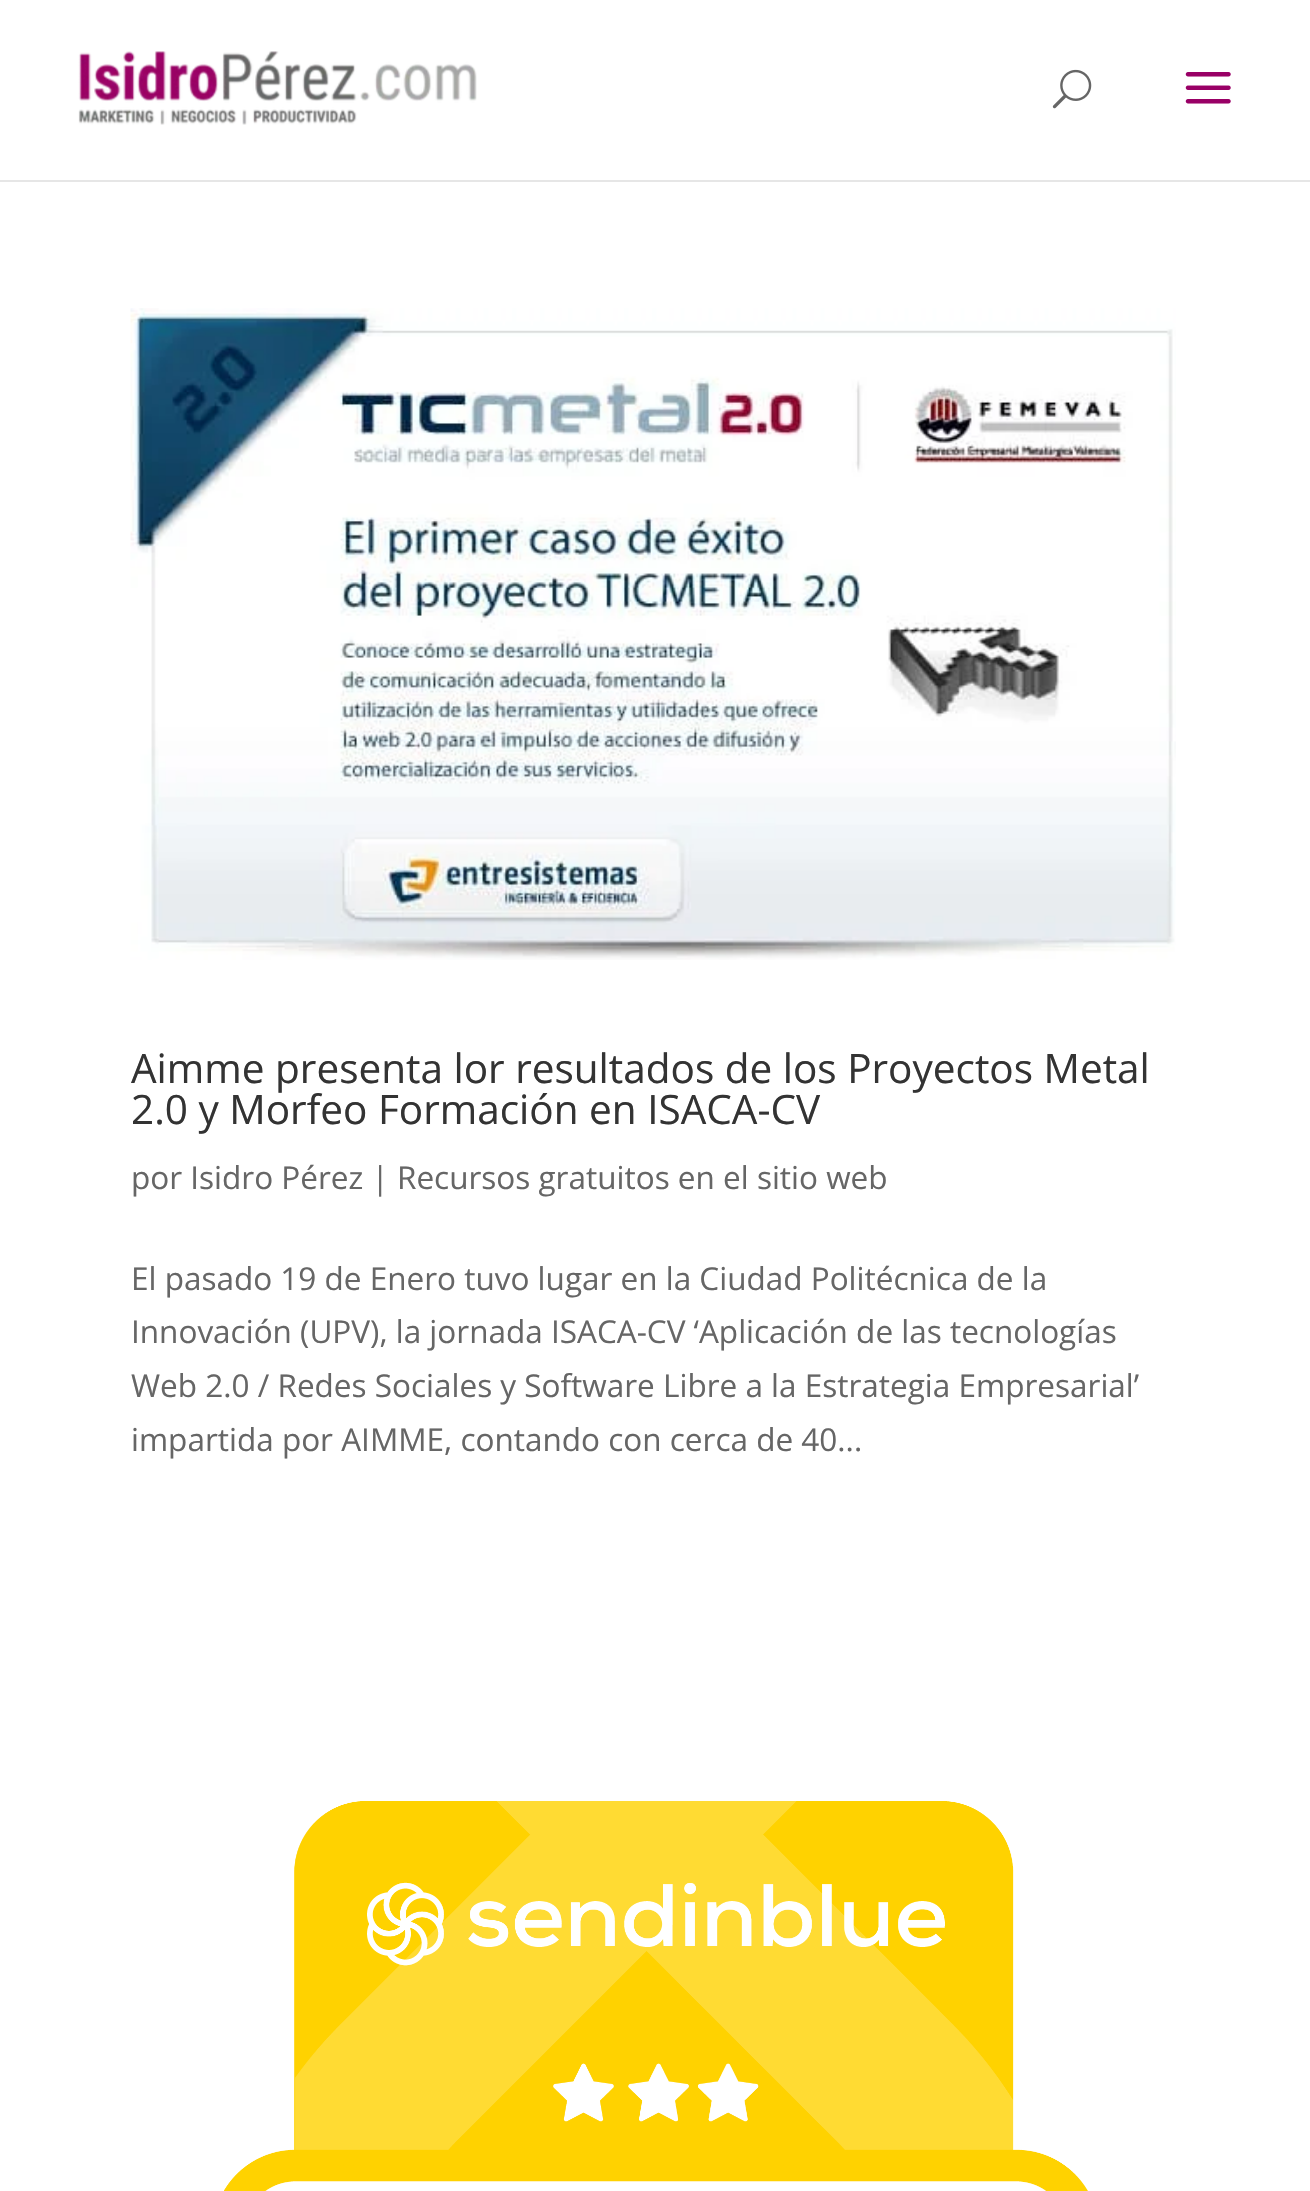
#include "include/core/SkBlurTypes.h"
#include "include/core/SkCanvas.h"
#include "include/core/SkData.h"
#include "include/core/SkFont.h"
#include "include/core/SkFontMgr.h"
#include "include/core/SkImage.h"
#include "include/core/SkMaskFilter.h"
#include "include/core/SkPaint.h"
#include "include/core/SkPathBuilder.h"
#include "include/core/SkTextBlob.h"
#include "include/effects/SkDashPathEffect.h"
#include "include/effects/SkGradientShader.h"
#include "include/utils/SkParsePath.h"

extern sk_sp<SkFontMgr> fontMgr;

static SkFont font(const char* family, int weight, float size, bool italic = false) {
    SkFontStyle style(weight, SkFontStyle::kNormal_Width,
        italic ? SkFontStyle::kItalic_Slant : SkFontStyle::kUpright_Slant);
    SkFont result(fontMgr->matchFamilyStyle(family, style), size);
    result.setSubpixel(true);
    return result;
}

static void drawLabel(SkCanvas* canvas, const char* s, float x, float y, const SkFont& font, SkColor color) {
    SkPaint ink(SkColor4f::FromColor(color));
    ink.setAntiAlias(true);
    canvas->drawString(s, x, y, font, ink);
}

static void drawPhoto(SkCanvas* canvas, const char* path, float x, float y, float w, float h) {
    auto image = SkImages::DeferredFromEncodedData(SkData::MakeFromFileName(path));
    canvas->drawImageRect(image, SkRect::MakeXYWH(x, y, w, h), SkSamplingOptions());
}

static SkPath parsePath(const char* data, bool evenOdd = false) {
    SkPath result = *SkParsePath::FromSVGString(data);
    if (evenOdd) result.setFillType(SkPathFillType::kEvenOdd);
    return result;
}

void draw(SkCanvas* canvas) {
    SkPaint paint;
    paint.setAntiAlias(true);
    canvas->clear(0xFFFFFFFF);
    paint.setColor(0xFFE6E6E6);
    canvas->drawPath(parsePath("M0 180V182H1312V2V180Z"), paint);
    drawPhoto(canvas, "assets/img1.png", 78, 51, 399, 74);
    drawPhoto(canvas, "assets/img2.png", 1052, 69, 40, 40);
    drawPhoto(canvas, "assets/img3.png", 1185, 72, 46, 32);
    drawPhoto(canvas, "assets/img4.png", 130, 308, 1046, 652);
    SkFont font1 = font("Open Sans", 400, 40.5f);
    drawLabel(canvas, "Aimme presenta lor resultados de los Proyectos Metal", 131, 1083, font1, 0xFF333333);
    drawLabel(canvas, "2.0 y Morfeo Formación en ISACA-CV", 131, 1124, font1, 0xFF333333);
    SkFont font2 = font("Open Sans", 400, 31.5f);
    drawLabel(canvas, "por Isidro Pérez | Recursos gratuitos en el sitio web", 131, 1189, font2, 0xFF666666);
    drawLabel(canvas, "El pasado 19 de Enero tuvo lugar en la Ciudad Politécnica de la", 131, 1290, font2, 0xFF666666);
    drawLabel(canvas, "Innovación (UPV), la jornada ISACA-CV ‘Aplicación de las tecnologías", 131, 1343, font2, 0xFF666666);
    drawLabel(canvas, "Web 2.0 / Redes Sociales y Software Libre a la Estrategia Empresarial’", 131, 1397, font2, 0xFF666666);
    drawLabel(canvas, "impartida por AIMME, contando con cerca de 40...", 131, 1451, font2, 0xFF666666);
    drawPhoto(canvas, "assets/img5.png", 224, 1801, 864, 390);
}
